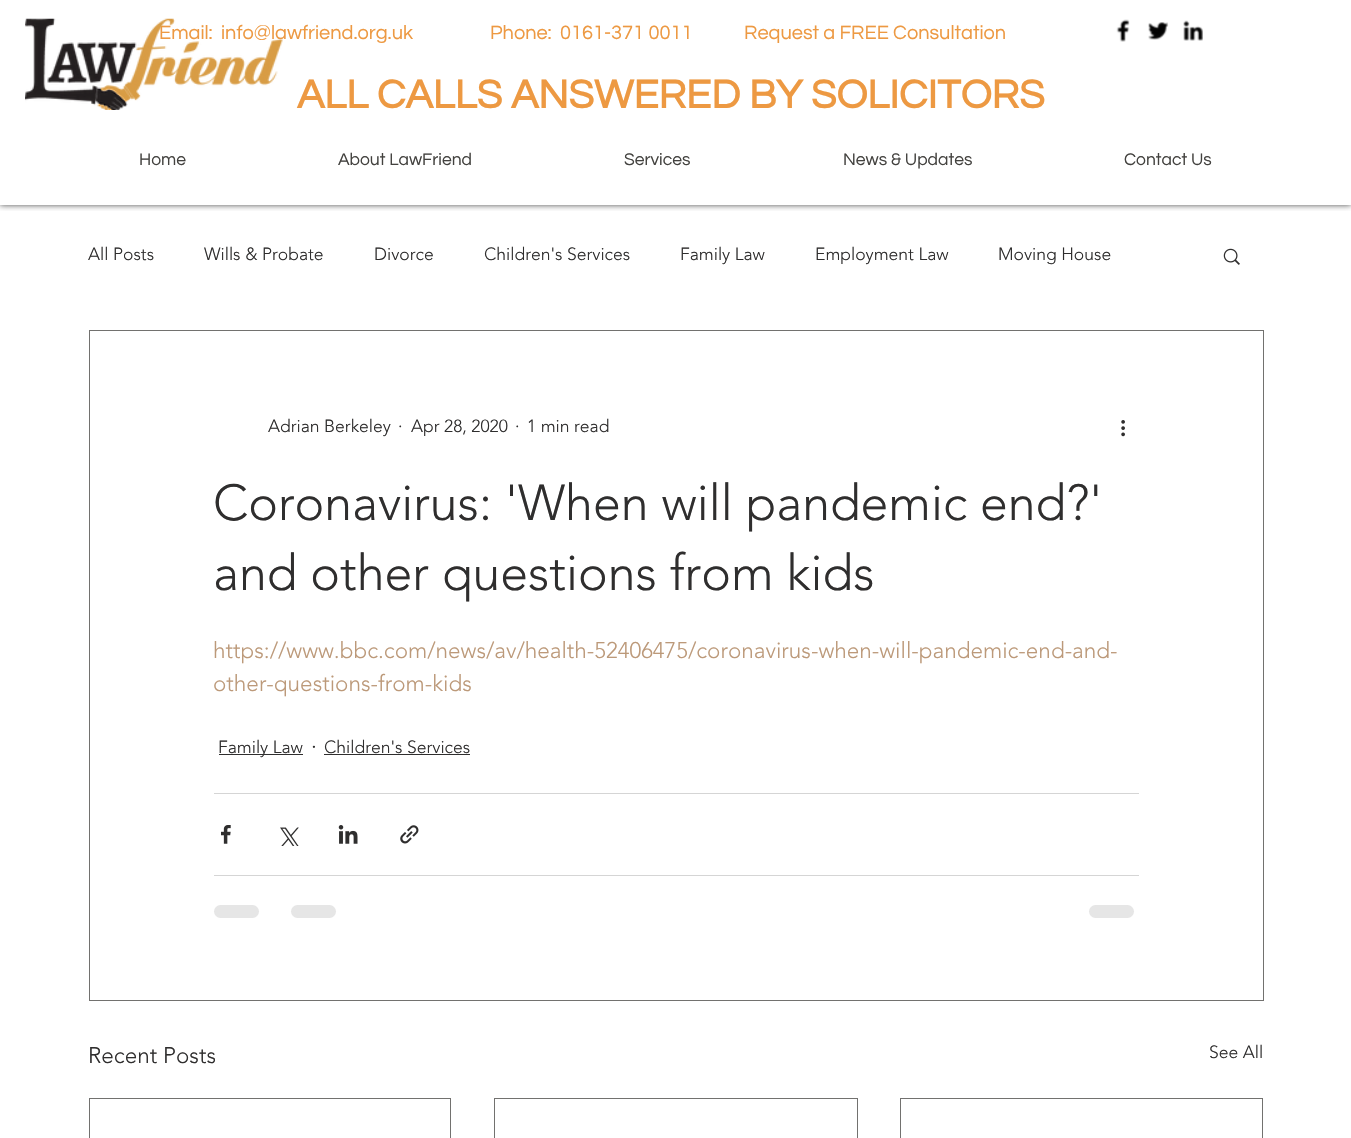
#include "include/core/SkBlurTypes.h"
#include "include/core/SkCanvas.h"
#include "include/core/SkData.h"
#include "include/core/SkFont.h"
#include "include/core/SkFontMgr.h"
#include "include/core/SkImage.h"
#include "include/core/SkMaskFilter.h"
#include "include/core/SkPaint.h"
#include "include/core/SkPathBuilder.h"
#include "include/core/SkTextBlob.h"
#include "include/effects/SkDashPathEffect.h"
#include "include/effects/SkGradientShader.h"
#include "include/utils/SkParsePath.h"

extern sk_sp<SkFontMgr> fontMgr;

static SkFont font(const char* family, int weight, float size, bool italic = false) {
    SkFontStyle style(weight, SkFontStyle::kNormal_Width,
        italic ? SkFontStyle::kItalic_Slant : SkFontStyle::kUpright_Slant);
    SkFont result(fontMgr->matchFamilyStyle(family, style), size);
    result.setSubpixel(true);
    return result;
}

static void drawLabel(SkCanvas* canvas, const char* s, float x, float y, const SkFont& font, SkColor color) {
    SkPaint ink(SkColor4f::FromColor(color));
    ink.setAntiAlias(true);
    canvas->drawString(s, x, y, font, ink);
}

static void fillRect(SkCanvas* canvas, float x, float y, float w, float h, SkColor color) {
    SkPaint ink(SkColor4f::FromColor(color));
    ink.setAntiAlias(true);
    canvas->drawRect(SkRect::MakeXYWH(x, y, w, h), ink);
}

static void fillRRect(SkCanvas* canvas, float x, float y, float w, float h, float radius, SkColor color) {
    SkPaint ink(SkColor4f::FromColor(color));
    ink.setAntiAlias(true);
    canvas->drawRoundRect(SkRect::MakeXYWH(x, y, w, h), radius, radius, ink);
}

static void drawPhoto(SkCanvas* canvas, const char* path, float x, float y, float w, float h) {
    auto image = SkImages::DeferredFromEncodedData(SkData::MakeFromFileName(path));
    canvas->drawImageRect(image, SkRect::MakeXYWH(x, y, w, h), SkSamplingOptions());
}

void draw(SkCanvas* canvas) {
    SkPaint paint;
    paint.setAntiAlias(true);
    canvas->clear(0xFFFFFFFF);
    canvas->save();
    canvas->clipRect(SkRect::MakeXYWH(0, 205, 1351, 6));
    paint.setColor(0xB3000000);
    paint.setMaskFilter(SkMaskFilter::MakeBlur(kNormal_SkBlurStyle, 3));
    canvas->drawRect(SkRect::MakeXYWH(0, 0, 1351, 205), paint);
    paint.setMaskFilter(nullptr);
    canvas->restore();
    SkFont font1 = font("Questrial", 400, 20);
    drawLabel(canvas, "Email:", 159, 39, font1, 0xFFED9942);
    drawLabel(canvas, "info@lawfriend.org.uk", 221, 39, font1, 0xFFED9942);
    drawPhoto(canvas, "assets/img1.png", 25, 18, 258, 92);
    drawLabel(canvas, "Phone:", 490, 39, font1, 0xFFED9942);
    drawLabel(canvas, "0161-371 0011", 560, 39, font1, 0xFFED9942);
    drawLabel(canvas, "Request a FREE Consultation", 744, 39, font1, 0xFFED9942);
    drawPhoto(canvas, "assets/img2.png", 1116, 19, 14, 23);
    drawPhoto(canvas, "assets/img3.png", 1148, 22, 21, 18);
    drawPhoto(canvas, "assets/img4.png", 1183, 20, 20, 21);
    SkFont font2 = font("Questrial", 700, 41.25f);
    drawLabel(canvas, "ALL CALLS ANSWERED BY SOLICITORS", 297, 108, font2, 0xFFED9942);
    SkFont font3 = font("Questrial", 400, 17.5f);
    drawLabel(canvas, "Home", 139, 165, font3, 0xFF43423F);
    drawLabel(canvas, "About LawFriend", 338, 165, font3, 0xFF43423F);
    drawLabel(canvas, "Services", 624, 165, font3, 0xFF43423F);
    drawLabel(canvas, "News & Updates", 843, 165, font3, 0xFF43423F);
    drawLabel(canvas, "Contact Us", 1124, 165, font3, 0xFF43423F);
    SkFont font4 = font("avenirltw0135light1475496", 300, 17.5f);
    drawLabel(canvas, "All Posts", 88, 260, font4, 0xFF2F2E2E);
    drawLabel(canvas, "Wills & Probate", 204, 260, font4, 0xFF2F2E2E);
    drawLabel(canvas, "Divorce", 374, 260, font4, 0xFF2F2E2E);
    drawLabel(canvas, "Children's Services", 484, 260, font4, 0xFF2F2E2E);
    drawLabel(canvas, "Family Law", 680, 260, font4, 0xFF2F2E2E);
    drawLabel(canvas, "Employment Law", 815, 260, font4, 0xFF2F2E2E);
    drawLabel(canvas, "Moving House", 998, 260, font4, 0xFF2F2E2E);
    drawPhoto(canvas, "assets/img5.png", 1223, 248, 17, 17);
    paint.setStroke(true);
    paint.setStrokeWidth(1);
    paint.setColor(0xFF72716F);
    canvas->drawRect(SkRect::MakeXYWH(89.5f, 330.5f, 1174, 670), paint);
    drawLabel(canvas, "Adrian Berkeley", 268, 432, font4, 0xFF2F2E2E);
    drawLabel(canvas, "·", 398, 432, font4, 0xFF2F2E2E);
    drawLabel(canvas, "Apr 28, 2020", 411, 432, font4, 0xFF2F2E2E);
    drawLabel(canvas, "·", 515, 432, font4, 0xFF2F2E2E);
    drawLabel(canvas, "1 min read", 527, 432, font4, 0xFF2F2E2E);
    drawPhoto(canvas, "assets/img6.png", 1121, 420, 4, 17);
    SkFont font5 = font("avenirltw0135light1475496", 300, 50);
    drawLabel(canvas, "Coronavirus: 'When will pandemic end?'", 213, 520, font5, 0xFF2F2E2E);
    drawLabel(canvas, "and other questions from kids", 213, 590, font5, 0xFF2F2E2E);
    SkFont font6 = font("avenirltw0135light1475496", 300, 22.5f);
    drawLabel(canvas, "https://www.bbc.com/news/av/health-52406475/coronavirus-when-will-pandemic-end-and-", 213, 658, font6, 0xFFBC9979);
    drawLabel(canvas, "other-questions-from-kids", 213, 691, font6, 0xFFBC9979);
    fillRect(canvas, 219, 754, 84, 1, 0xFF2F2E2E);
    drawLabel(canvas, "Family Law", 218, 753, font4, 0xFF2F2E2E);
    drawLabel(canvas, "·", 311, 754, font6, 0xFF2F2E2E);
    drawLabel(canvas, "Children's Services", 324, 753, font4, 0xFF2F2E2E);
    fillRect(canvas, 324, 754, 146, 1, 0xFF2F2E2E);
    fillRect(canvas, 214, 793, 925, 1, 0xFFD5D5D5);
    drawPhoto(canvas, "assets/img7.png", 221, 825, 10, 19);
    drawPhoto(canvas, "assets/img8.png", 280, 827, 19, 19);
    drawPhoto(canvas, "assets/img9.png", 338, 825, 20, 19);
    drawPhoto(canvas, "assets/img10.png", 400, 825, 19, 19);
    fillRect(canvas, 214, 875, 925, 1, 0xFFD5D5D5);
    fillRRect(canvas, 214, 905, 45, 13, 6.5f, 0xFFE6E6E6);
    fillRRect(canvas, 291, 905, 45, 13, 6.5f, 0xFFE6E6E6);
    fillRRect(canvas, 1089, 905, 45, 13, 6.5f, 0xFFE6E6E6);
    drawLabel(canvas, "Recent Posts", 88, 1063, font6, 0xFF2F2E2E);
    drawLabel(canvas, "See All", 1209, 1058, font4, 0xFF2F2E2E);
    canvas->drawRect(SkRect::MakeXYWH(89.5f, 1098.5f, 361, 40), paint);
    canvas->drawRect(SkRect::MakeXYWH(494.5f, 1098.5f, 363, 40), paint);
    canvas->drawRect(SkRect::MakeXYWH(900.5f, 1098.5f, 362, 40), paint);
}
